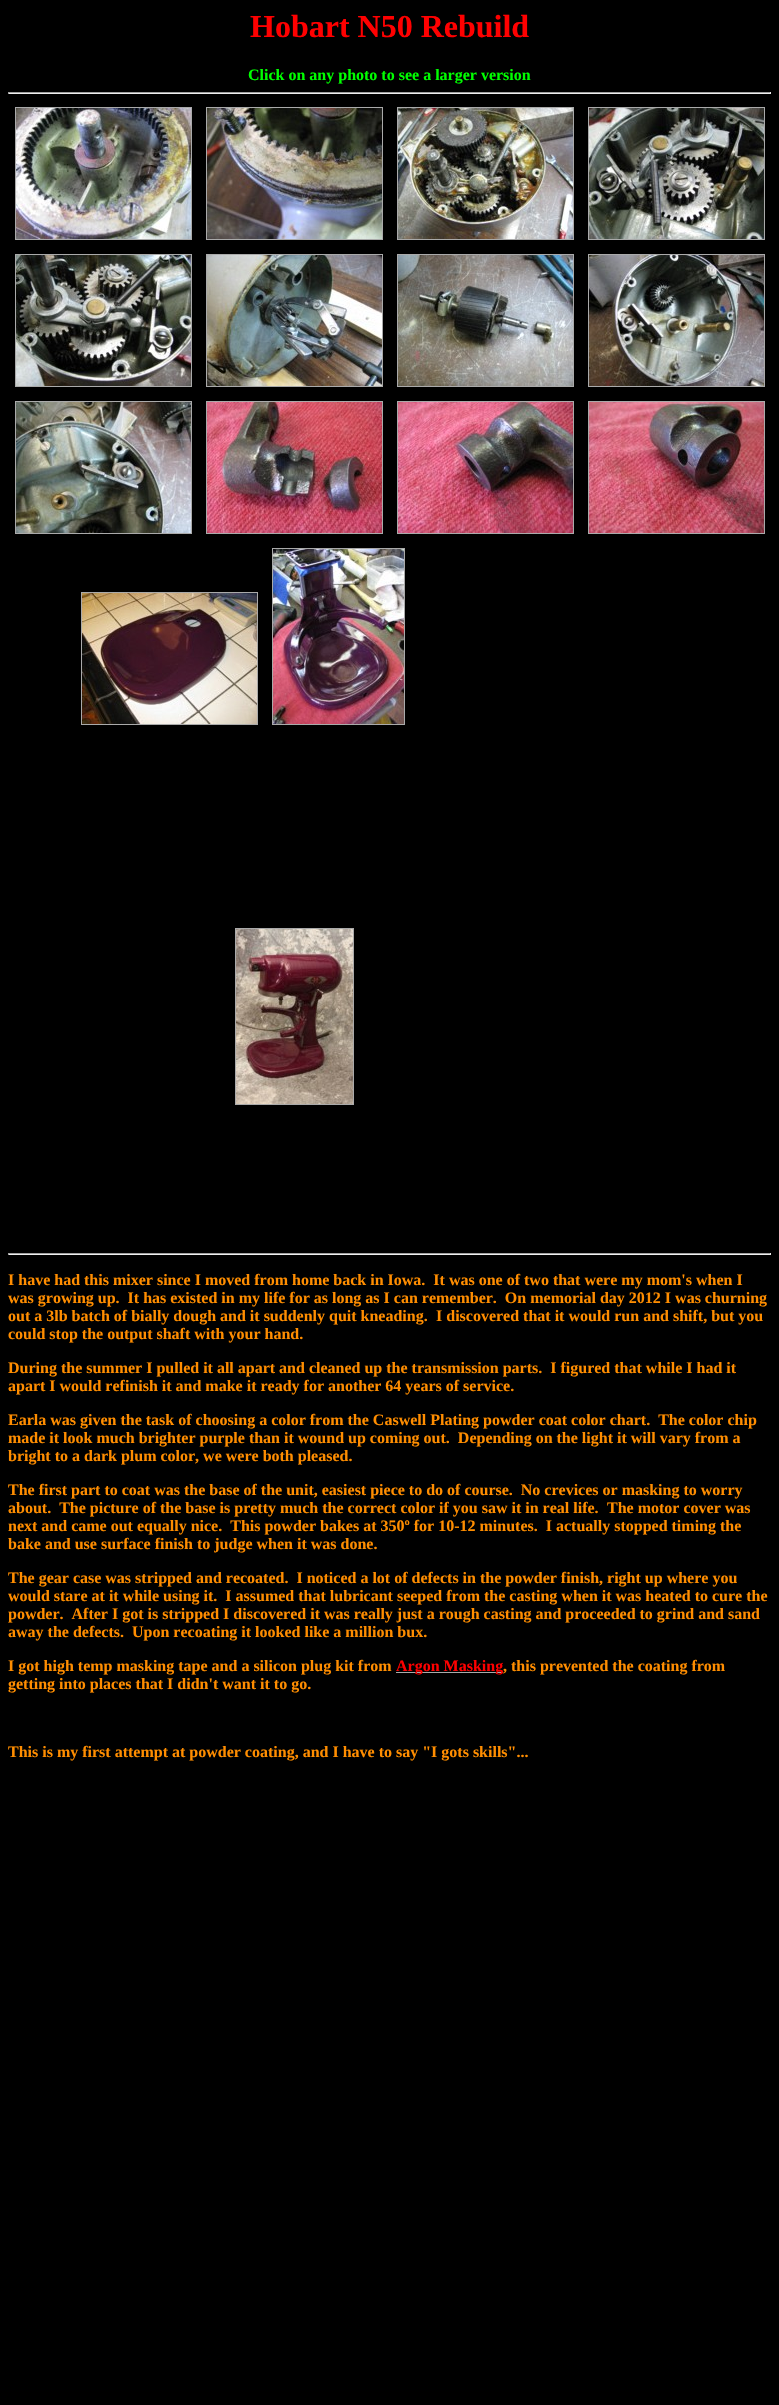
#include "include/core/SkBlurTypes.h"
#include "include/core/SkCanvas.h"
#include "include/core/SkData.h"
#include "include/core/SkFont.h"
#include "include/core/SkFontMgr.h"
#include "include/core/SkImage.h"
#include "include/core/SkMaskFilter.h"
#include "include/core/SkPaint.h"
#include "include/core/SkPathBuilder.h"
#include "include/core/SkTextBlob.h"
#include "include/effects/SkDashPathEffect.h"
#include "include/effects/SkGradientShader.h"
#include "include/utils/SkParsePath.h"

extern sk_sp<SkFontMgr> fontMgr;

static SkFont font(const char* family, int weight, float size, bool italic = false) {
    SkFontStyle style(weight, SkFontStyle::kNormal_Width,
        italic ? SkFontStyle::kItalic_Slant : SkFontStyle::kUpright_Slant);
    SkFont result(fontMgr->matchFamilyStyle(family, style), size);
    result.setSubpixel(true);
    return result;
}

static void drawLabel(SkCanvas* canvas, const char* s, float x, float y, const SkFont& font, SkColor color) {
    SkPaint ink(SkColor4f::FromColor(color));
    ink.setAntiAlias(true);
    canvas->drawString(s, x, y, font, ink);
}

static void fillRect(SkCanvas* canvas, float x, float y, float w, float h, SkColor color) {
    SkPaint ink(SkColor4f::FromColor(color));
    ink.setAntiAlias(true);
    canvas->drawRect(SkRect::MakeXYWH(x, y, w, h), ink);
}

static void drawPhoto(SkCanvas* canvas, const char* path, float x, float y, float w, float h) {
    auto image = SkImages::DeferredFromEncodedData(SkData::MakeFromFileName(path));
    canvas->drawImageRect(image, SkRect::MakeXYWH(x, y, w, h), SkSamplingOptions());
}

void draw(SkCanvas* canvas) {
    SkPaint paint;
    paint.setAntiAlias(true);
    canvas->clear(0xFF000000);
    SkFont font1 = font("Liberation Serif", 700, 32);
    drawLabel(canvas, "Hobart N50 Rebuild", 250, 37, font1, 0xFFFF0000);
    SkFont font2 = font("Liberation Serif", 700, 16);
    drawLabel(canvas, "Click on any photo to see a larger version", 248, 80, font2, 0xFF00FF00);
    fillRect(canvas, 8, 92, 763, 1, 0xFF9F9F9F);
    fillRect(canvas, 770, 92, 1, 2, 0xFFEEEEEE);
    fillRect(canvas, 8, 93, 763, 1, 0xFFEEEEEE);
    fillRect(canvas, 8, 92, 1, 2, 0xFF9F9F9F);
    paint.setStroke(true);
    paint.setStrokeWidth(1);
    paint.setColor(0xFFAAAAAA);
    canvas->drawRect(SkRect::MakeXYWH(15.5f, 107.5f, 176, 132), paint);
    canvas->drawRect(SkRect::MakeXYWH(206.5f, 107.5f, 176, 132), paint);
    canvas->drawRect(SkRect::MakeXYWH(397.5f, 107.5f, 176, 132), paint);
    canvas->drawRect(SkRect::MakeXYWH(588.5f, 107.5f, 176, 132), paint);
    drawPhoto(canvas, "assets/img1.png", 16, 108, 175, 131);
    drawPhoto(canvas, "assets/img2.png", 207, 108, 175, 131);
    drawPhoto(canvas, "assets/img3.png", 398, 108, 175, 131);
    drawPhoto(canvas, "assets/img4.png", 589, 108, 175, 131);
    canvas->drawRect(SkRect::MakeXYWH(15.5f, 254.5f, 176, 132), paint);
    canvas->drawRect(SkRect::MakeXYWH(206.5f, 254.5f, 176, 132), paint);
    canvas->drawRect(SkRect::MakeXYWH(397.5f, 254.5f, 176, 132), paint);
    canvas->drawRect(SkRect::MakeXYWH(588.5f, 254.5f, 176, 132), paint);
    drawPhoto(canvas, "assets/img5.png", 16, 255, 175, 131);
    drawPhoto(canvas, "assets/img6.png", 207, 255, 175, 131);
    drawPhoto(canvas, "assets/img7.png", 398, 255, 175, 131);
    drawPhoto(canvas, "assets/img8.png", 589, 255, 175, 131);
    canvas->drawRect(SkRect::MakeXYWH(15.5f, 401.5f, 176, 132), paint);
    canvas->drawRect(SkRect::MakeXYWH(206.5f, 401.5f, 176, 132), paint);
    canvas->drawRect(SkRect::MakeXYWH(397.5f, 401.5f, 176, 132), paint);
    canvas->drawRect(SkRect::MakeXYWH(588.5f, 401.5f, 176, 132), paint);
    drawPhoto(canvas, "assets/img9.png", 16, 402, 175, 131);
    drawPhoto(canvas, "assets/img10.png", 207, 402, 175, 131);
    drawPhoto(canvas, "assets/img11.png", 398, 402, 175, 131);
    drawPhoto(canvas, "assets/img12.png", 589, 402, 175, 131);
    canvas->drawRect(SkRect::MakeXYWH(272.5f, 548.5f, 132, 176), paint);
    canvas->drawRect(SkRect::MakeXYWH(81.5f, 592.5f, 176, 132), paint);
    drawPhoto(canvas, "assets/img13.png", 273, 549, 131, 175);
    drawPhoto(canvas, "assets/img14.png", 82, 593, 175, 131);
    canvas->drawRect(SkRect::MakeXYWH(235.5f, 928.5f, 118, 176), paint);
    drawPhoto(canvas, "assets/img15.png", 236, 929, 117, 175);
    fillRect(canvas, 8, 1253, 763, 1, 0xFF9F9F9F);
    fillRect(canvas, 770, 1253, 1, 2, 0xFFEEEEEE);
    fillRect(canvas, 8, 1254, 763, 1, 0xFFEEEEEE);
    fillRect(canvas, 8, 1253, 1, 2, 0xFF9F9F9F);
    drawLabel(canvas, "I have had this mixer since I moved from home back in Iowa.  It was one of two that were my mom's when I", 8, 1285, font2, 0xFFFF8D00);
    drawLabel(canvas, "was growing up.  It has existed in my life for as long as I can remember.  On memorial day 2012 I was churning", 8, 1303, font2, 0xFFFF8D00);
    drawLabel(canvas, "out a 3lb batch of bially dough and it suddenly quit kneading.", 8, 1321, font2, 0xFFFF8D00);
    drawLabel(canvas, "I discovered that it would run and shift, but you", 436, 1321, font2, 0xFFFF8D00);
    drawLabel(canvas, "could stop the output shaft with your hand.", 8, 1339, font2, 0xFFFF8D00);
    drawLabel(canvas, "During the summer I pulled it all apart and cleaned up the transmission parts.  I figured that while I had it", 8, 1373, font2, 0xFFFF8D00);
    drawLabel(canvas, "apart I would refinish it and make it ready for another 64 years of service.", 8, 1391, font2, 0xFFFF8D00);
    drawLabel(canvas, "Earla was given the task of choosing a color from the Caswell Plating powder coat color chart.  The color chip", 8, 1425, font2, 0xFFFF8D00);
    drawLabel(canvas, "made it look much brighter purple than it wound up coming out.  Depending on the light it will vary from a", 8, 1443, font2, 0xFFFF8D00);
    drawLabel(canvas, "bright to a dark plum color, we were both pleased.", 8, 1461, font2, 0xFFFF8D00);
    drawLabel(canvas, "The first part to coat was the base of the unit, easiest piece to do of course.  No crevices or masking to worry", 8, 1495, font2, 0xFFFF8D00);
    drawLabel(canvas, "about.  The picture of the base is pretty much the correct color if you saw it in real life.", 8, 1513, font2, 0xFFFF8D00);
    drawLabel(canvas, "The motor cover was", 607, 1513, font2, 0xFFFF8D00);
    drawLabel(canvas, "next and came out equally nice.  This powder bakes at 350º for 10-12 minutes.  I actually stopped timing the", 8, 1531, font2, 0xFFFF8D00);
    drawLabel(canvas, "bake and use surface finish to judge when it was done.", 8, 1549, font2, 0xFFFF8D00);
    drawLabel(canvas, "The gear case was stripped and recoated.  I noticed a lot of defects in the powder finish, right up where you", 8, 1583, font2, 0xFFFF8D00);
    drawLabel(canvas, "would stare at it while using it.  I assumed that lubricant seeped from the casting when it was heated to cure the", 8, 1601, font2, 0xFFFF8D00);
    drawLabel(canvas, "powder.  After I got is stripped I discovered it was really just a rough casting and proceeded to grind and sand", 8, 1619, font2, 0xFFFF8D00);
    drawLabel(canvas, "away the defects.", 8, 1637, font2, 0xFFFF8D00);
    drawLabel(canvas, "Upon recoating it looked like a million bux.", 132, 1637, font2, 0xFFFF8D00);
    drawLabel(canvas, "I got high temp masking tape and a silicon plug kit from", 8, 1671, font2, 0xFFFF8D00);
    fillRect(canvas, 396, 1672, 107, 1, 0xFFAAAAAA);
    drawLabel(canvas, "Argon Masking", 396, 1671, font2, 0xFFFF0000);
    drawLabel(canvas, ", this prevented the coating from", 503, 1671, font2, 0xFFFF8D00);
    drawLabel(canvas, "getting into places that I didn't want it to go.", 8, 1689, font2, 0xFFFF8D00);
    drawLabel(canvas, "This is my first attempt at powder coating, and I have to say \"I gots skills\"...", 8, 1757, font2, 0xFFFF8D00);
}
